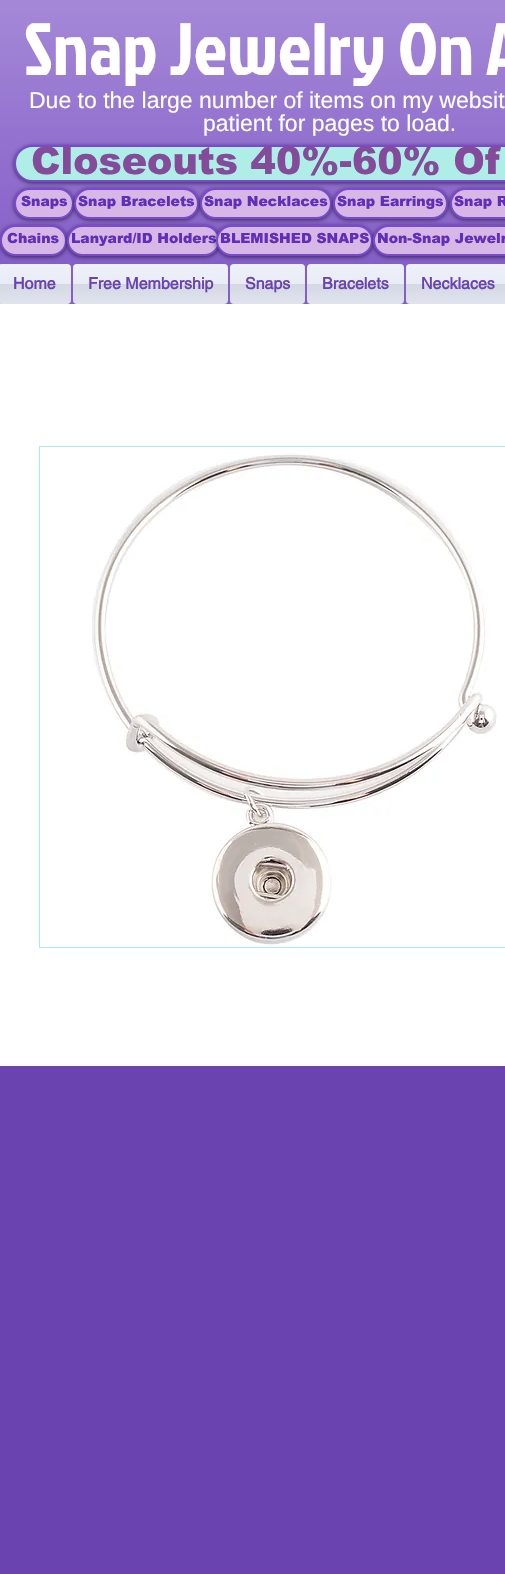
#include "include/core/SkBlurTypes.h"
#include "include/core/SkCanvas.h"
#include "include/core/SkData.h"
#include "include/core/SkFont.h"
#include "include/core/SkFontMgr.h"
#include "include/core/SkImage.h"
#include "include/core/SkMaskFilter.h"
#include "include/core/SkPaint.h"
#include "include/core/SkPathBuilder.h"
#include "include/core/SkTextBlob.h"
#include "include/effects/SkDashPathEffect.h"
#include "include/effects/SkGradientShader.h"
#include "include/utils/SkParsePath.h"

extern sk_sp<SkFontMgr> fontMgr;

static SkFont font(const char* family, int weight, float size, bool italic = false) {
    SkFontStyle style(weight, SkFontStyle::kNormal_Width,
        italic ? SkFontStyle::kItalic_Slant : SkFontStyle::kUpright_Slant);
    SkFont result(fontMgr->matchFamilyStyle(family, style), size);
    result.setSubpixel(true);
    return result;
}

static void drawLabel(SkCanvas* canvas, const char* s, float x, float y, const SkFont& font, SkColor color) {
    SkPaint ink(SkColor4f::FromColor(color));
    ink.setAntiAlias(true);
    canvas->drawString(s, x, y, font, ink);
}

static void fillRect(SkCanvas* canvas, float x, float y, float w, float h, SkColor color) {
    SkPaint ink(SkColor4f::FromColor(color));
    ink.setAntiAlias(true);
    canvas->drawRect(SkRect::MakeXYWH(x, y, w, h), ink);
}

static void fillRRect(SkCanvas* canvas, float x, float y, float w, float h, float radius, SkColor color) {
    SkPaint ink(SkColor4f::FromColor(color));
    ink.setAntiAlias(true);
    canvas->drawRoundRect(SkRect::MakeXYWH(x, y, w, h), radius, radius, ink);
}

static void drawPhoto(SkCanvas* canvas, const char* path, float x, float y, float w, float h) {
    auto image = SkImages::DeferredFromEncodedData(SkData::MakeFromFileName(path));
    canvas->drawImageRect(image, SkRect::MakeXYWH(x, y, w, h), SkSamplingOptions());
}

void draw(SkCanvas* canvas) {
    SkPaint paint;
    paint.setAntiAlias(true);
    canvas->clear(0xFF6A43B1);
    fillRect(canvas, 0, 0, 505, 304, 0xFF855FC9);
    drawPhoto(canvas, "assets/img1.png", 0, 0, 505, 248);
    SkFont font1 = font("Jockey One", 400, 74);
    drawLabel(canvas, "Snap Jewelry On A", 24, 75, font1, 0xFFFFFFFF);
    SkFont font2 = font("Liberation Sans", 400, 23);
    drawLabel(canvas, "Due to the large number of items on my websit", 29, 108, font2, 0xFFFFFFFF);
    drawLabel(canvas, "patient for pages to load.", 203, 131, font2, 0xFFFFFFFF);
    paint.setColor(0x99000000);
    paint.setMaskFilter(SkMaskFilter::MakeBlur(kNormal_SkBlurStyle, 2));
    canvas->drawRoundRect(SkRect::MakeXYWH(14, 146, 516, 37), 18.5f, 18.5f, paint);
    paint.setMaskFilter(nullptr);
    paint.setColor(0xFFAFEEE6);
    canvas->drawRoundRect(SkRect::MakeXYWH(15, 146, 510, 35), 17.5f, 17.5f, paint);
    paint.setStroke(true);
    paint.setStrokeWidth(2);
    paint.setColor(0xFF7B49D1);
    canvas->drawRoundRect(SkRect::MakeXYWH(15, 146, 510, 35), 17.5f, 17.5f, paint);
    SkFont font3 = font("arial", 900, 38);
    drawLabel(canvas, "Closeouts 40%-60% Of", 31, 174, font3, 0xFF844B9B);
    paint.setStroke(false);
    paint.setColor(0x99000000);
    paint.setMaskFilter(SkMaskFilter::MakeBlur(kNormal_SkBlurStyle, 2));
    canvas->drawRoundRect(SkRect::MakeXYWH(14, 189, 60, 31), 15.5f, 15.5f, paint);
    paint.setMaskFilter(nullptr);
    paint.setColor(0xFFD7B7E6);
    canvas->drawRoundRect(SkRect::MakeXYWH(15, 189, 58, 29), 14.5f, 14.5f, paint);
    paint.setStroke(true);
    paint.setColor(0xFF7B49D1);
    canvas->drawRoundRect(SkRect::MakeXYWH(15, 189, 58, 29), 14.5f, 14.5f, paint);
    SkFont font4 = font("arial", 900, 14);
    drawLabel(canvas, "Snaps", 21, 206, font4, 0xFF602EB8);
    paint.setStroke(false);
    paint.setColor(0x99000000);
    paint.setMaskFilter(SkMaskFilter::MakeBlur(kNormal_SkBlurStyle, 2));
    canvas->drawRoundRect(SkRect::MakeXYWH(74, 189, 125, 31), 15.5f, 15.5f, paint);
    paint.setMaskFilter(nullptr);
    paint.setColor(0xFFD7B7E6);
    canvas->drawRoundRect(SkRect::MakeXYWH(75, 189, 123, 29), 14.5f, 14.5f, paint);
    paint.setStroke(true);
    paint.setColor(0xFF7B49D1);
    canvas->drawRoundRect(SkRect::MakeXYWH(75, 189, 123, 29), 14.5f, 14.5f, paint);
    drawLabel(canvas, "Snap Bracelets", 78, 206, font4, 0xFF602EB8);
    paint.setStroke(false);
    paint.setColor(0x99000000);
    paint.setMaskFilter(SkMaskFilter::MakeBlur(kNormal_SkBlurStyle, 2));
    canvas->drawRoundRect(SkRect::MakeXYWH(200, 189, 132, 31), 15.5f, 15.5f, paint);
    paint.setMaskFilter(nullptr);
    paint.setColor(0xFFD7B7E6);
    canvas->drawRoundRect(SkRect::MakeXYWH(201, 189, 130, 29), 14.5f, 14.5f, paint);
    paint.setStroke(true);
    paint.setColor(0xFF7B49D1);
    canvas->drawRoundRect(SkRect::MakeXYWH(201, 189, 130, 29), 14.5f, 14.5f, paint);
    drawLabel(canvas, "Snap Necklaces", 204, 206, font4, 0xFF602EB8);
    paint.setStroke(false);
    paint.setColor(0x99000000);
    paint.setMaskFilter(SkMaskFilter::MakeBlur(kNormal_SkBlurStyle, 2));
    canvas->drawRoundRect(SkRect::MakeXYWH(333, 189, 115, 31), 15.5f, 15.5f, paint);
    paint.setMaskFilter(nullptr);
    paint.setColor(0xFFD7B7E6);
    canvas->drawRoundRect(SkRect::MakeXYWH(334, 189, 113, 29), 14.5f, 14.5f, paint);
    paint.setStroke(true);
    paint.setColor(0xFF7B49D1);
    canvas->drawRoundRect(SkRect::MakeXYWH(334, 189, 113, 29), 14.5f, 14.5f, paint);
    drawLabel(canvas, "Snap Earrings", 337, 206, font4, 0xFF602EB8);
    paint.setStroke(false);
    paint.setColor(0x99000000);
    paint.setMaskFilter(SkMaskFilter::MakeBlur(kNormal_SkBlurStyle, 2));
    canvas->drawRoundRect(SkRect::MakeXYWH(450, 189, 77, 31), 15.5f, 15.5f, paint);
    paint.setMaskFilter(nullptr);
    paint.setColor(0xFFD7B7E6);
    canvas->drawRoundRect(SkRect::MakeXYWH(451, 189, 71, 29), 14.5f, 14.5f, paint);
    paint.setStroke(true);
    paint.setColor(0xFF7B49D1);
    canvas->drawRoundRect(SkRect::MakeXYWH(451, 189, 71, 29), 14.5f, 14.5f, paint);
    drawLabel(canvas, "Snap R", 454, 206, font4, 0xFF602EB8);
    paint.setStroke(false);
    paint.setColor(0x99000000);
    paint.setMaskFilter(SkMaskFilter::MakeBlur(kNormal_SkBlurStyle, 2));
    canvas->drawRoundRect(SkRect::MakeXYWH(0, 226, 67, 31), 15.5f, 15.5f, paint);
    paint.setMaskFilter(nullptr);
    paint.setColor(0xFFD7B7E6);
    canvas->drawRoundRect(SkRect::MakeXYWH(1, 226, 65, 29), 14.5f, 14.5f, paint);
    paint.setStroke(true);
    paint.setColor(0xFF7B49D1);
    canvas->drawRoundRect(SkRect::MakeXYWH(1, 226, 65, 29), 14.5f, 14.5f, paint);
    drawLabel(canvas, "Chains", 7, 243, font4, 0xFF602EB8);
    paint.setStroke(false);
    paint.setColor(0x99000000);
    paint.setMaskFilter(SkMaskFilter::MakeBlur(kNormal_SkBlurStyle, 2));
    canvas->drawRoundRect(SkRect::MakeXYWH(67, 226, 153, 31), 15.5f, 15.5f, paint);
    paint.setMaskFilter(nullptr);
    paint.setColor(0xFFD7B7E6);
    canvas->drawRoundRect(SkRect::MakeXYWH(68, 226, 151, 29), 14.5f, 14.5f, paint);
    paint.setStroke(true);
    paint.setColor(0xFF7B49D1);
    canvas->drawRoundRect(SkRect::MakeXYWH(68, 226, 151, 29), 14.5f, 14.5f, paint);
    drawLabel(canvas, "Lanyard/ID Holders", 71, 243, font4, 0xFF602EB8);
    paint.setStroke(false);
    paint.setColor(0x99000000);
    paint.setMaskFilter(SkMaskFilter::MakeBlur(kNormal_SkBlurStyle, 2));
    canvas->drawRoundRect(SkRect::MakeXYWH(216, 226, 157, 31), 15.5f, 15.5f, paint);
    paint.setMaskFilter(nullptr);
    paint.setColor(0xFFD7B7E6);
    canvas->drawRoundRect(SkRect::MakeXYWH(217, 226, 155, 29), 14.5f, 14.5f, paint);
    paint.setStroke(true);
    paint.setColor(0xFF7B49D1);
    canvas->drawRoundRect(SkRect::MakeXYWH(217, 226, 155, 29), 14.5f, 14.5f, paint);
    drawLabel(canvas, "BLEMISHED SNAPS", 220, 243, font4, 0xFF602EB8);
    paint.setStroke(false);
    paint.setColor(0x99000000);
    paint.setMaskFilter(SkMaskFilter::MakeBlur(kNormal_SkBlurStyle, 2));
    canvas->drawRoundRect(SkRect::MakeXYWH(373, 226, 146, 31), 15.5f, 15.5f, paint);
    paint.setMaskFilter(nullptr);
    paint.setColor(0xFFD7B7E6);
    canvas->drawRoundRect(SkRect::MakeXYWH(374, 226, 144, 29), 14.5f, 14.5f, paint);
    paint.setStroke(true);
    paint.setColor(0xFF7B49D1);
    canvas->drawRoundRect(SkRect::MakeXYWH(374, 226, 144, 29), 14.5f, 14.5f, paint);
    drawLabel(canvas, "Non-Snap Jewelr", 377, 243, font4, 0xFF602EB8);
    fillRRect(canvas, -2, 264, 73, 40, 4, 0xFFE6EAF5);
    drawPhoto(canvas, "assets/img2.png", 0, 264, 71, 40);
    SkFont font5 = font("helvetica", 700, 16);
    drawLabel(canvas, "Home", 13, 289, font5, 0xFF6A43B1);
    fillRRect(canvas, 73, 264, 155, 40, 4, 0xFFE6EAF5);
    drawPhoto(canvas, "assets/img3.png", 73, 264, 155, 40);
    drawLabel(canvas, "Free Membership", 88, 289, font5, 0xFF6A43B1);
    fillRRect(canvas, 230, 264, 75, 40, 4, 0xFFE6EAF5);
    drawPhoto(canvas, "assets/img4.png", 230, 264, 75, 40);
    drawLabel(canvas, "Snaps", 245, 289, font5, 0xFF6A43B1);
    fillRRect(canvas, 307, 264, 97, 40, 4, 0xFFE6EAF5);
    drawPhoto(canvas, "assets/img5.png", 307, 264, 97, 40);
    drawLabel(canvas, "Bracelets", 322, 289, font5, 0xFF6A43B1);
    fillRRect(canvas, 406, 264, 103, 40, 4, 0xFFE6EAF5);
    drawPhoto(canvas, "assets/img6.png", 406, 264, 99, 40);
    drawLabel(canvas, "Necklaces", 421, 289, font5, 0xFF6A43B1);
    fillRect(canvas, 0, 304, 505, 762, 0xFFFFFFFF);
    paint.setStrokeWidth(1);
    paint.setColor(0xFFABEDE4);
    canvas->drawRect(SkRect::MakeXYWH(39.5f, 446.5f, 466, 501), paint);
    drawPhoto(canvas, "assets/img7.png", 92, 453, 405, 494);
}
